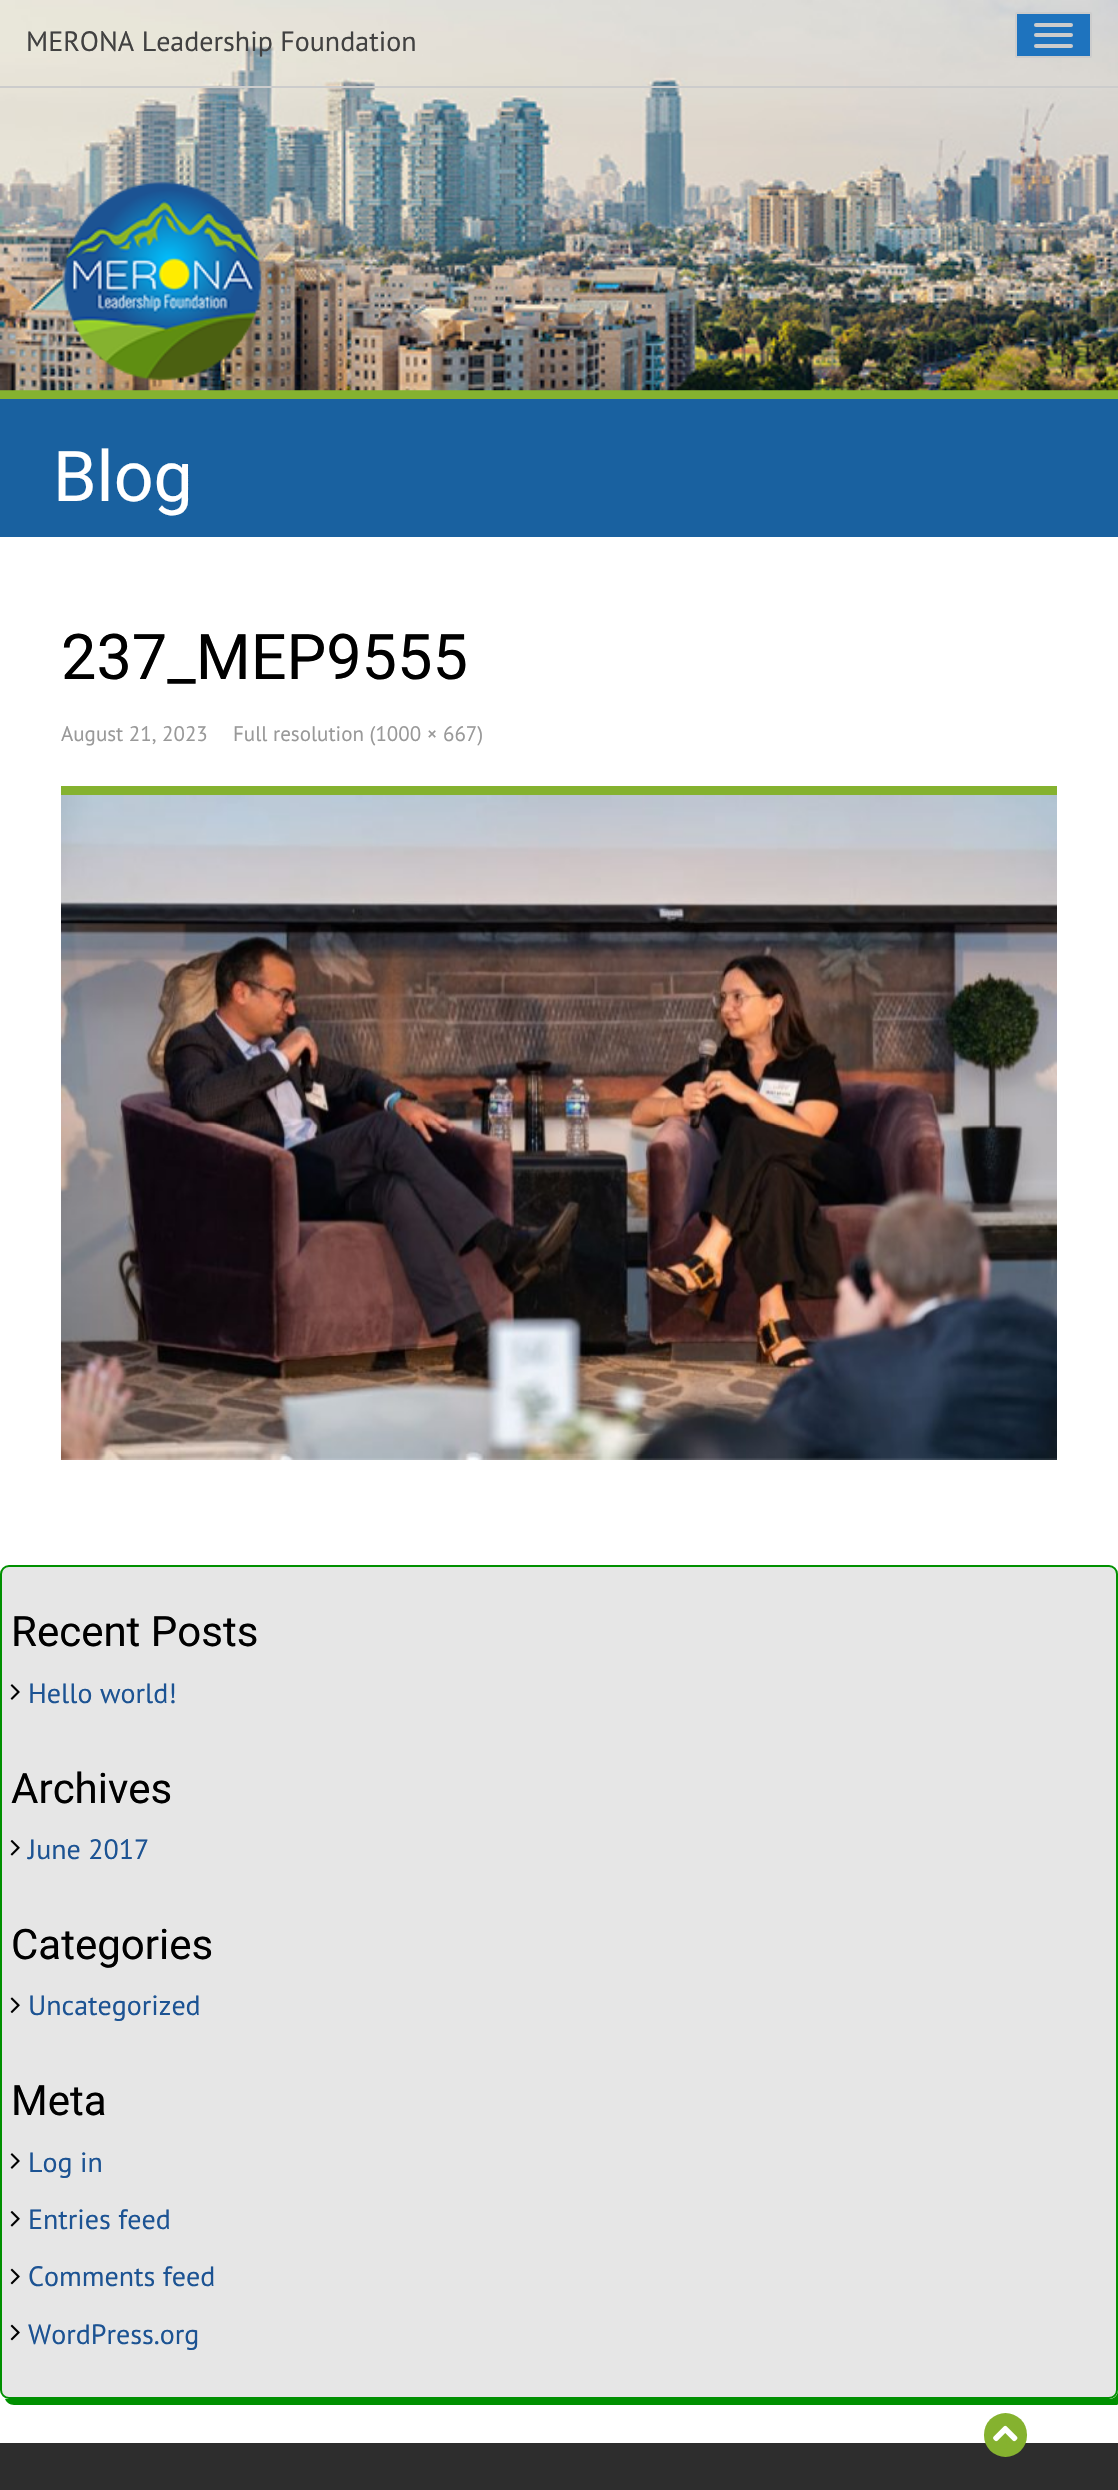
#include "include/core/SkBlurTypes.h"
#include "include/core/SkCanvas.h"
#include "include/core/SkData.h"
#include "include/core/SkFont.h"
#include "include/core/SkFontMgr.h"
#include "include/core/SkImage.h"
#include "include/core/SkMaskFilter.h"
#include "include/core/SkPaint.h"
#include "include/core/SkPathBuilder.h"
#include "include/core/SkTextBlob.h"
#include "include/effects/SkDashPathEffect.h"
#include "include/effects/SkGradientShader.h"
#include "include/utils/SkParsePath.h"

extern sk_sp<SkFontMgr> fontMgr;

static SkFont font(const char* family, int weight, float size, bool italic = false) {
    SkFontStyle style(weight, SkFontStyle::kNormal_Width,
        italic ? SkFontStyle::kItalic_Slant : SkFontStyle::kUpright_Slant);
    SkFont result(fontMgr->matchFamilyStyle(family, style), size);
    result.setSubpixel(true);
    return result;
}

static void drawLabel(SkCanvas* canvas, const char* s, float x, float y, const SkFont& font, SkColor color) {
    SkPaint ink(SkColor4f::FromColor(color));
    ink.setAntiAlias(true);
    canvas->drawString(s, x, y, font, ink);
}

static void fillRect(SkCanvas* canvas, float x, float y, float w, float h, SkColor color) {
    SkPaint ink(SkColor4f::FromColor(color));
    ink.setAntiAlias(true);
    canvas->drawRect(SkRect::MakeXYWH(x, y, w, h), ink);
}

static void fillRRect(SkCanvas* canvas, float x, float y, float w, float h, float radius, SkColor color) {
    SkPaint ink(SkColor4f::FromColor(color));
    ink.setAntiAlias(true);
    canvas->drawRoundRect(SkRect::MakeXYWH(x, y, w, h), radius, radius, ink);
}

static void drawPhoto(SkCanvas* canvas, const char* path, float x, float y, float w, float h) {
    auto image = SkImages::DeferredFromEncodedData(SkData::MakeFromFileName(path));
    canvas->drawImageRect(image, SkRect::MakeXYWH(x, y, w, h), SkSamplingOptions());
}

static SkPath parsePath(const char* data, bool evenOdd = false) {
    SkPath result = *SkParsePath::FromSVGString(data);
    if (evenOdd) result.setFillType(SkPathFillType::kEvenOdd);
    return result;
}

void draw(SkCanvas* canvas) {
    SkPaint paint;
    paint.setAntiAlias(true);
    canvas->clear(0xFFFFFFFF);
    drawPhoto(canvas, "assets/img1.png", 0, 0, 1118, 390);
    fillRect(canvas, 0, 390, 1118, 9, 0xFF85B22F);
    drawPhoto(canvas, "assets/img2.png", 0, 390, 1118, 1);
    fillRect(canvas, 0, 86, 1118, 2, 0xFFCCCCCC);
    SkFont font1 = font("PT Sans", 400, 28);
    drawLabel(canvas, "MERONA Leadership Foundation", 26, 51, font1, 0xFF414141);
    paint.setColor(0xFF1E73BE);
    canvas->drawRoundRect(SkRect::MakeXYWH(1016, 13, 75, 44), 1, 1, paint);
    paint.setStroke(true);
    paint.setStrokeWidth(2);
    paint.setColor(0xFFCCCCCC);
    canvas->drawRoundRect(SkRect::MakeXYWH(1016, 13, 75, 44), 1, 1, paint);
    fillRRect(canvas, 1034, 23, 39, 4, 2, 0xFFCCCCCC);
    fillRRect(canvas, 1034, 33, 39, 4, 2, 0xFFCCCCCC);
    fillRRect(canvas, 1034, 44, 39, 4, 2, 0xFFCCCCCC);
    drawPhoto(canvas, "assets/img3.png", 62, 181, 200, 200);
    fillRect(canvas, 0, 399, 1118, 138, 0xFF1961A0);
    SkFont font2 = font("Roboto", 400, 70);
    drawLabel(canvas, "Blog", 53, 501, font2, 0xFFFFFFFF);
    fillRect(canvas, 61, 786, 996, 9, 0xFF85B22F);
    SkFont font3 = font("Roboto", 400, 63);
    drawLabel(canvas, "237_MEP9555", 61, 679, font3, 0xFF000000);
    SkFont font4 = font("PT Sans", 400, 21);
    drawLabel(canvas, "August 21, 2023", 61, 741, font4, 0xFF999999);
    drawLabel(canvas, "Full resolution (1000 × 667)", 233, 741, font4, 0xFF999999);
    drawPhoto(canvas, "assets/img4.png", 61, 795, 996, 665);
    paint.setStroke(false);
    paint.setColor(0xFF009000);
    canvas->drawPath(parsePath("M5 2399C6 2402 10 2405 14 2405H1115C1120 2405 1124 2401 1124 2396V1579C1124 1575 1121 1572 1118 1570V1573V2390C1118 2395 1114 2399 1110 2399H9Z"), paint);
    paint.setColor(0xFFE6E6E6);
    canvas->drawRoundRect(SkRect::MakeXYWH(1, 1566, 1116, 832), 8, 8, paint);
    paint.setStroke(true);
    paint.setColor(0xFF009000);
    canvas->drawRoundRect(SkRect::MakeXYWH(1, 1566, 1116, 832), 8, 8, paint);
    SkFont font5 = font("Roboto", 400, 42);
    drawLabel(canvas, "Recent Posts", 11, 1646, font5, 0xFF000000);
    drawPhoto(canvas, "assets/img5.png", 10, 1684, 10, 16);
    drawLabel(canvas, "Hello world!", 28, 1703, font1, 0xFF1C5393);
    drawLabel(canvas, "Archives", 11, 1803, font5, 0xFF000000);
    drawPhoto(canvas, "assets/img6.png", 10, 1840, 10, 16);
    drawLabel(canvas, "June 2017", 28, 1859, font1, 0xFF1C5393);
    drawLabel(canvas, "Categories", 11, 1959, font5, 0xFF000000);
    drawPhoto(canvas, "assets/img7.png", 10, 1997, 10, 16);
    drawLabel(canvas, "Uncategorized", 28, 2015, font1, 0xFF1C5393);
    drawLabel(canvas, "Meta", 11, 2115, font5, 0xFF000000);
    drawPhoto(canvas, "assets/img5.png", 10, 2153, 10, 16);
    drawLabel(canvas, "Log in", 28, 2172, font1, 0xFF1C5393);
    drawPhoto(canvas, "assets/img6.png", 10, 2211, 10, 16);
    drawLabel(canvas, "Entries feed", 28, 2229, font1, 0xFF1C5393);
    drawPhoto(canvas, "assets/img8.png", 10, 2268, 10, 17);
    drawLabel(canvas, "Comments feed", 28, 2286, font1, 0xFF1C5393);
    drawPhoto(canvas, "assets/img8.png", 10, 2324, 10, 17);
    drawLabel(canvas, "WordPress.org", 28, 2344, font1, 0xFF1C5393);
    fillRect(canvas, 0, 2443, 1118, 47, 0xFF2D2D2D);
    fillRRect(canvas, 984, 2413, 43, 44, 21.5f, 0xFF85B22F);
    drawPhoto(canvas, "assets/img9.png", 993, 2425, 25, 17);
}
